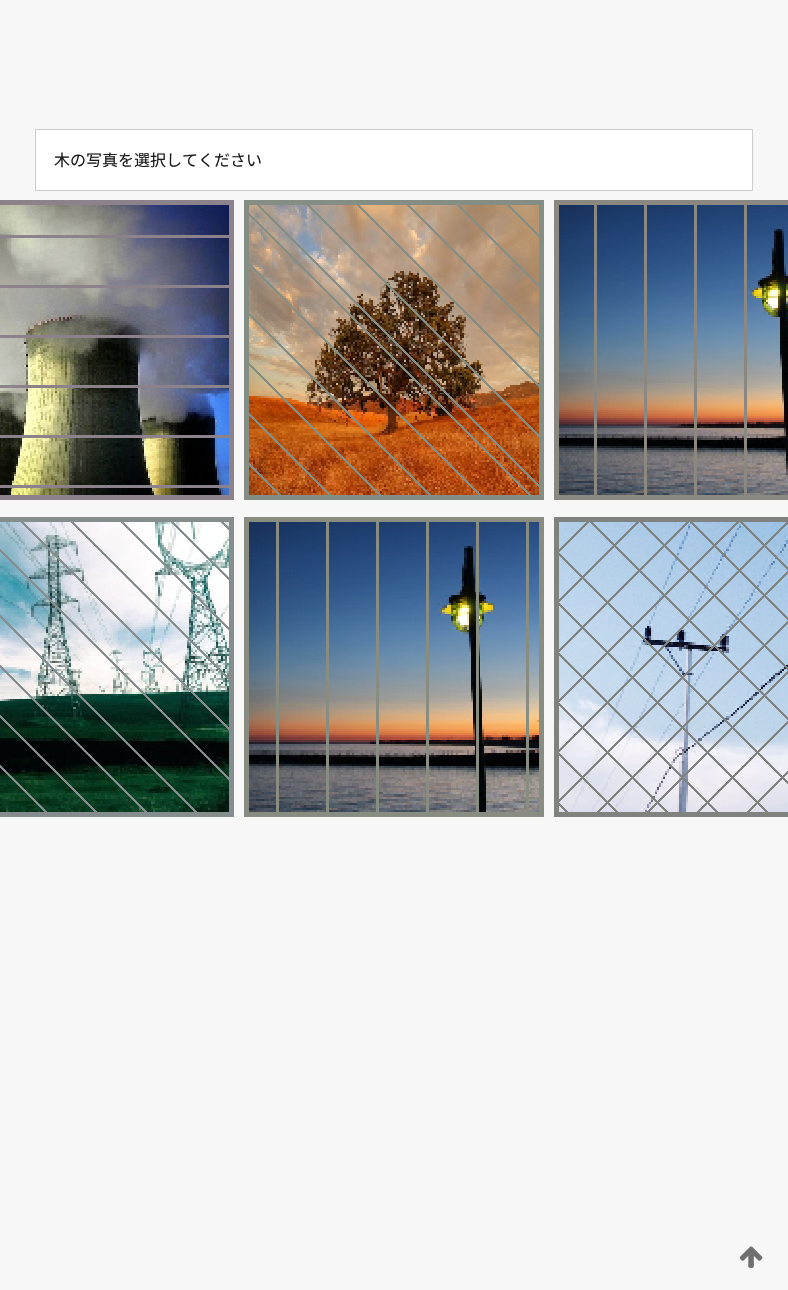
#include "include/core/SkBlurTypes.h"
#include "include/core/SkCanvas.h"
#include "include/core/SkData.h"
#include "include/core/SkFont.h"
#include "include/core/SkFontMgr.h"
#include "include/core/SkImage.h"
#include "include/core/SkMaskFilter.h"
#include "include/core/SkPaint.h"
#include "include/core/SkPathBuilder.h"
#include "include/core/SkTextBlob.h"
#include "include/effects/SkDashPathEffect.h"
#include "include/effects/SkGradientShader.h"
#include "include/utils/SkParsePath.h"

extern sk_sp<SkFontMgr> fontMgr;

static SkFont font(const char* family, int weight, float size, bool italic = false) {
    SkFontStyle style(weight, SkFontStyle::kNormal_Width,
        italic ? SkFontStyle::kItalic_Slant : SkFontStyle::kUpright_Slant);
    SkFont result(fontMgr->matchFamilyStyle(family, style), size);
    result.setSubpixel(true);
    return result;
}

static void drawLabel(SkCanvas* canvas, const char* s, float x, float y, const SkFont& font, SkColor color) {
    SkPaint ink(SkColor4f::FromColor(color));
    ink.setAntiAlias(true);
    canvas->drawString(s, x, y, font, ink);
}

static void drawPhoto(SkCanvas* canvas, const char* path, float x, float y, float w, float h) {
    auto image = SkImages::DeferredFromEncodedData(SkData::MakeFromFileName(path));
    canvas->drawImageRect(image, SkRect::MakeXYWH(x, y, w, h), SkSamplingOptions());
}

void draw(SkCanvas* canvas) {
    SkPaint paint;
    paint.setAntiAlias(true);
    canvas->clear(0xFFF7F7F7);
    paint.setColor(0xFFFFFFFF);
    canvas->drawRect(SkRect::MakeXYWH(35.5f, 129.5f, 717, 61), paint);
    paint.setStroke(true);
    paint.setStrokeWidth(1);
    paint.setColor(0xFFCCCCCC);
    canvas->drawRect(SkRect::MakeXYWH(35.5f, 129.5f, 717, 61), paint);
    SkFont font1 = font("Noto Sans SC", 100, 16);
    drawLabel(canvas, "木の写真を選択してください", 54, 166, font1, 0xFF1A1A1A);
    drawPhoto(canvas, "assets/img1.png", 0, 200, 234, 300);
    drawPhoto(canvas, "assets/img2.png", 244, 200, 300, 300);
    drawPhoto(canvas, "assets/img3.png", 554, 200, 234, 300);
    drawPhoto(canvas, "assets/img4.png", 0, 517, 234, 300);
    drawPhoto(canvas, "assets/img5.png", 244, 517, 300, 300);
    drawPhoto(canvas, "assets/img6.png", 554, 517, 234, 300);
    drawPhoto(canvas, "assets/img7.png", 739, 1246, 24, 22);
}
